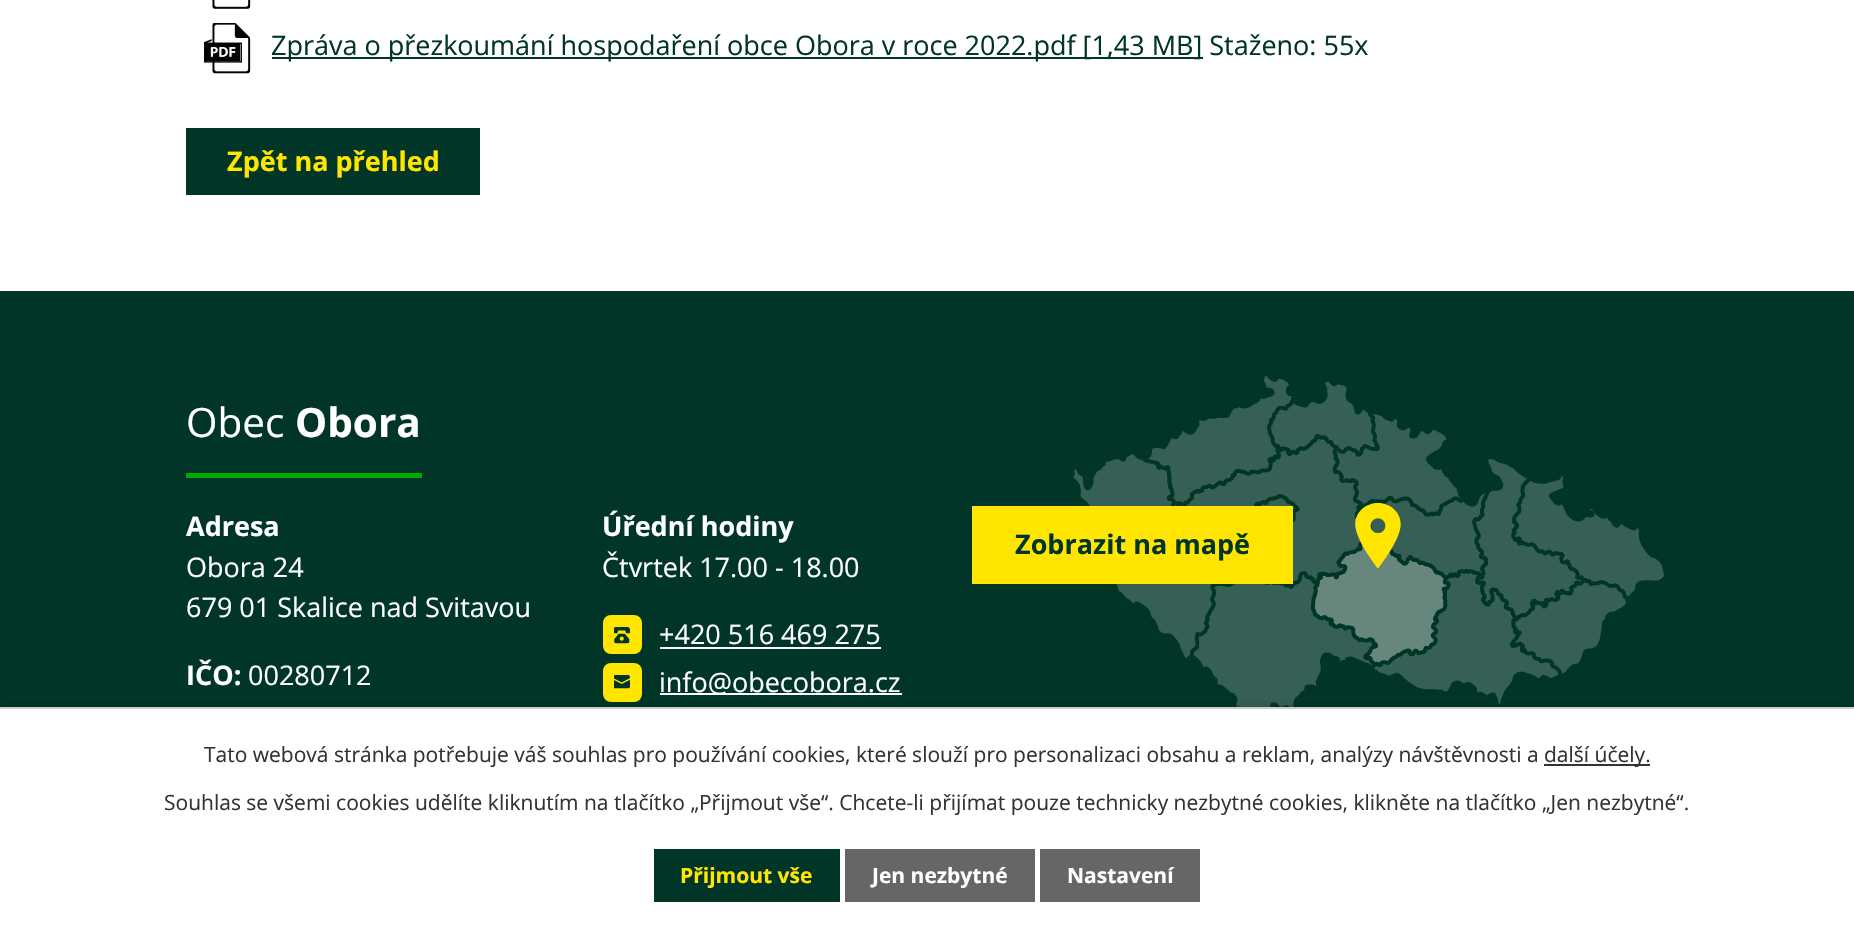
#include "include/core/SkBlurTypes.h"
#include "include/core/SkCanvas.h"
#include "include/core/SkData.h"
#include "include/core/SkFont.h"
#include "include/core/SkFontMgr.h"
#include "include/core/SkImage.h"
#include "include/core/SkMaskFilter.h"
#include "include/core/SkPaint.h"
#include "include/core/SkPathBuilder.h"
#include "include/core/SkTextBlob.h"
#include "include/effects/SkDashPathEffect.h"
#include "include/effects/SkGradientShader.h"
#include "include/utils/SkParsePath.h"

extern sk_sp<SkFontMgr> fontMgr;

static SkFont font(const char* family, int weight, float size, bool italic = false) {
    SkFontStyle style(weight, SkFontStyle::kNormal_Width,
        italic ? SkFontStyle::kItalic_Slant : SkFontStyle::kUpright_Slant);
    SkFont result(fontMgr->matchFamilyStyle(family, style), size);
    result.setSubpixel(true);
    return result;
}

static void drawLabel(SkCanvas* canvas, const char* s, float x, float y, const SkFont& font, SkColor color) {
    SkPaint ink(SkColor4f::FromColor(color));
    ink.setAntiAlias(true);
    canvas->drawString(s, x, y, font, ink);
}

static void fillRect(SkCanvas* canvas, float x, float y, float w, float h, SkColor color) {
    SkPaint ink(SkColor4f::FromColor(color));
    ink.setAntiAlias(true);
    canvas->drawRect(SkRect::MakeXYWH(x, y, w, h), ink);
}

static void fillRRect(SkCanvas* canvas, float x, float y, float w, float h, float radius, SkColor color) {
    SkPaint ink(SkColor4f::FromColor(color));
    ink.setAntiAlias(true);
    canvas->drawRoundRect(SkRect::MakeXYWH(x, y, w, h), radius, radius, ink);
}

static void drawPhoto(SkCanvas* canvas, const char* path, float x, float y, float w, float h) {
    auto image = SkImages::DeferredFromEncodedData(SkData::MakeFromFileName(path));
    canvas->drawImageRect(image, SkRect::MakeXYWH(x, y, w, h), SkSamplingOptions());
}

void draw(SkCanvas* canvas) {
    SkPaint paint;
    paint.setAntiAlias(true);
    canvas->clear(0xFFFFFFFF);
    drawPhoto(canvas, "assets/img1.png", 212, 0, 39, 9);
    drawPhoto(canvas, "assets/img2.png", 204, 23, 47, 51);
    fillRect(canvas, 272, 57, 931, 2, 0xFF003527);
    SkFont font1 = font("Open Sans", 400, 27);
    drawLabel(canvas, "Zpráva o přezkoumání hospodaření obce Obora v roce 2022.pdf [1,43 MB] Staženo: 55x", 271, 55, font1, 0xFF003527);
    fillRect(canvas, 186, 128, 294, 67, 0xFF003527);
    SkFont font2 = font("Open Sans", 700, 27);
    drawLabel(canvas, "Zpět na přehled", 227, 171, font2, 0xFFFFE500);
    fillRect(canvas, 0, 291, 1854, 416, 0xFF003527);
    SkFont font3 = font("Open Sans", 400, 40.5f);
    drawLabel(canvas, "Obec", 186, 437, font3, 0xFFFFFFFF);
    SkFont font4 = font("Open Sans", 700, 40.5f);
    drawLabel(canvas, "Obora", 295, 437, font4, 0xFFFFFFFF);
    fillRect(canvas, 186, 473, 236, 5, 0xFF00AB00);
    drawLabel(canvas, "Adresa", 186, 536, font2, 0xFFFFFFFF);
    drawLabel(canvas, "Obora 24", 186, 577, font1, 0xFFFFFFFF);
    drawLabel(canvas, "679 01 Skalice nad Svitavou", 186, 617, font1, 0xFFFFFFFF);
    drawLabel(canvas, "IČO:", 186, 685, font2, 0xFFFFFFFF);
    drawLabel(canvas, "00280712", 248, 685, font1, 0xFFFFFFFF);
    drawLabel(canvas, "Úřední hodiny", 602, 536, font2, 0xFFFFFFFF);
    drawLabel(canvas, "Čtvrtek 17.00 - 18.00", 602, 577, font1, 0xFFFFFFFF);
    fillRRect(canvas, 603, 615, 39, 39, 8, 0xFFFFE500);
    drawPhoto(canvas, "assets/img3.png", 614, 627, 16, 17);
    drawLabel(canvas, "+420 516 469 275", 659, 644, font1, 0xFFFFFFFF);
    fillRect(canvas, 660, 647, 221, 2, 0xFFFFFFFF);
    fillRRect(canvas, 603, 663, 39, 39, 8, 0xFFFFE500);
    drawPhoto(canvas, "assets/img4.png", 614, 675, 16, 14);
    fillRect(canvas, 660, 693, 242, 2, 0xFFFFFFFF);
    drawLabel(canvas, "info@obecobora.cz", 659, 692, font1, 0xFFFFFFFF);
    drawPhoto(canvas, "assets/img5.png", 1073, 376, 591, 331);
    fillRect(canvas, 972, 506, 321, 78, 0xFFFFE500);
    drawLabel(canvas, "Zobrazit na mapě", 1015, 554, font2, 0xFF003527);
    paint.setColor(0x33000000);
    paint.setMaskFilter(SkMaskFilter::MakeBlur(kNormal_SkBlurStyle, 4));
    canvas->drawRect(SkRect::MakeXYWH(0, 707, 1854, 223), paint);
    paint.setMaskFilter(nullptr);
    fillRect(canvas, 0, 709, 1854, 221, 0xFFFFFFFF);
    fillRect(canvas, 0, 707, 1854, 2, 0xFFCCCCCC);
    SkFont font5 = font("Open Sans", 400, 21);
    drawLabel(canvas, "Tato webová stránka potřebuje váš souhlas pro používání cookies, které slouží pro personalizaci obsahu a reklam, analýzy návštěvnosti a", 204, 762, font5, 0xFF333333);
    fillRect(canvas, 1544, 764, 106, 2, 0xFF333333);
    drawLabel(canvas, "další účely.", 1544, 762, font5, 0xFF333333);
    drawLabel(canvas, "Souhlas se všemi cookies udělíte kliknutím na tlačítko „Přijmout vše“. Chcete-li přijímat pouze technicky nezbytné cookies, klikněte na tlačítko „Jen nezbytné“.", 164, 810, font5, 0xFF333333);
    fillRect(canvas, 654, 849, 186, 53, 0xFF003527);
    SkFont font6 = font("Open Sans", 700, 21);
    drawLabel(canvas, "Přijmout vše", 680, 883, font6, 0xFFFFE500);
    fillRect(canvas, 845, 849, 190, 53, 0xFF666666);
    drawLabel(canvas, "Jen nezbytné", 872, 883, font6, 0xFFFFFFFF);
    fillRect(canvas, 1040, 849, 160, 53, 0xFF666666);
    drawLabel(canvas, "Nastavení", 1067, 883, font6, 0xFFFFFFFF);
}
